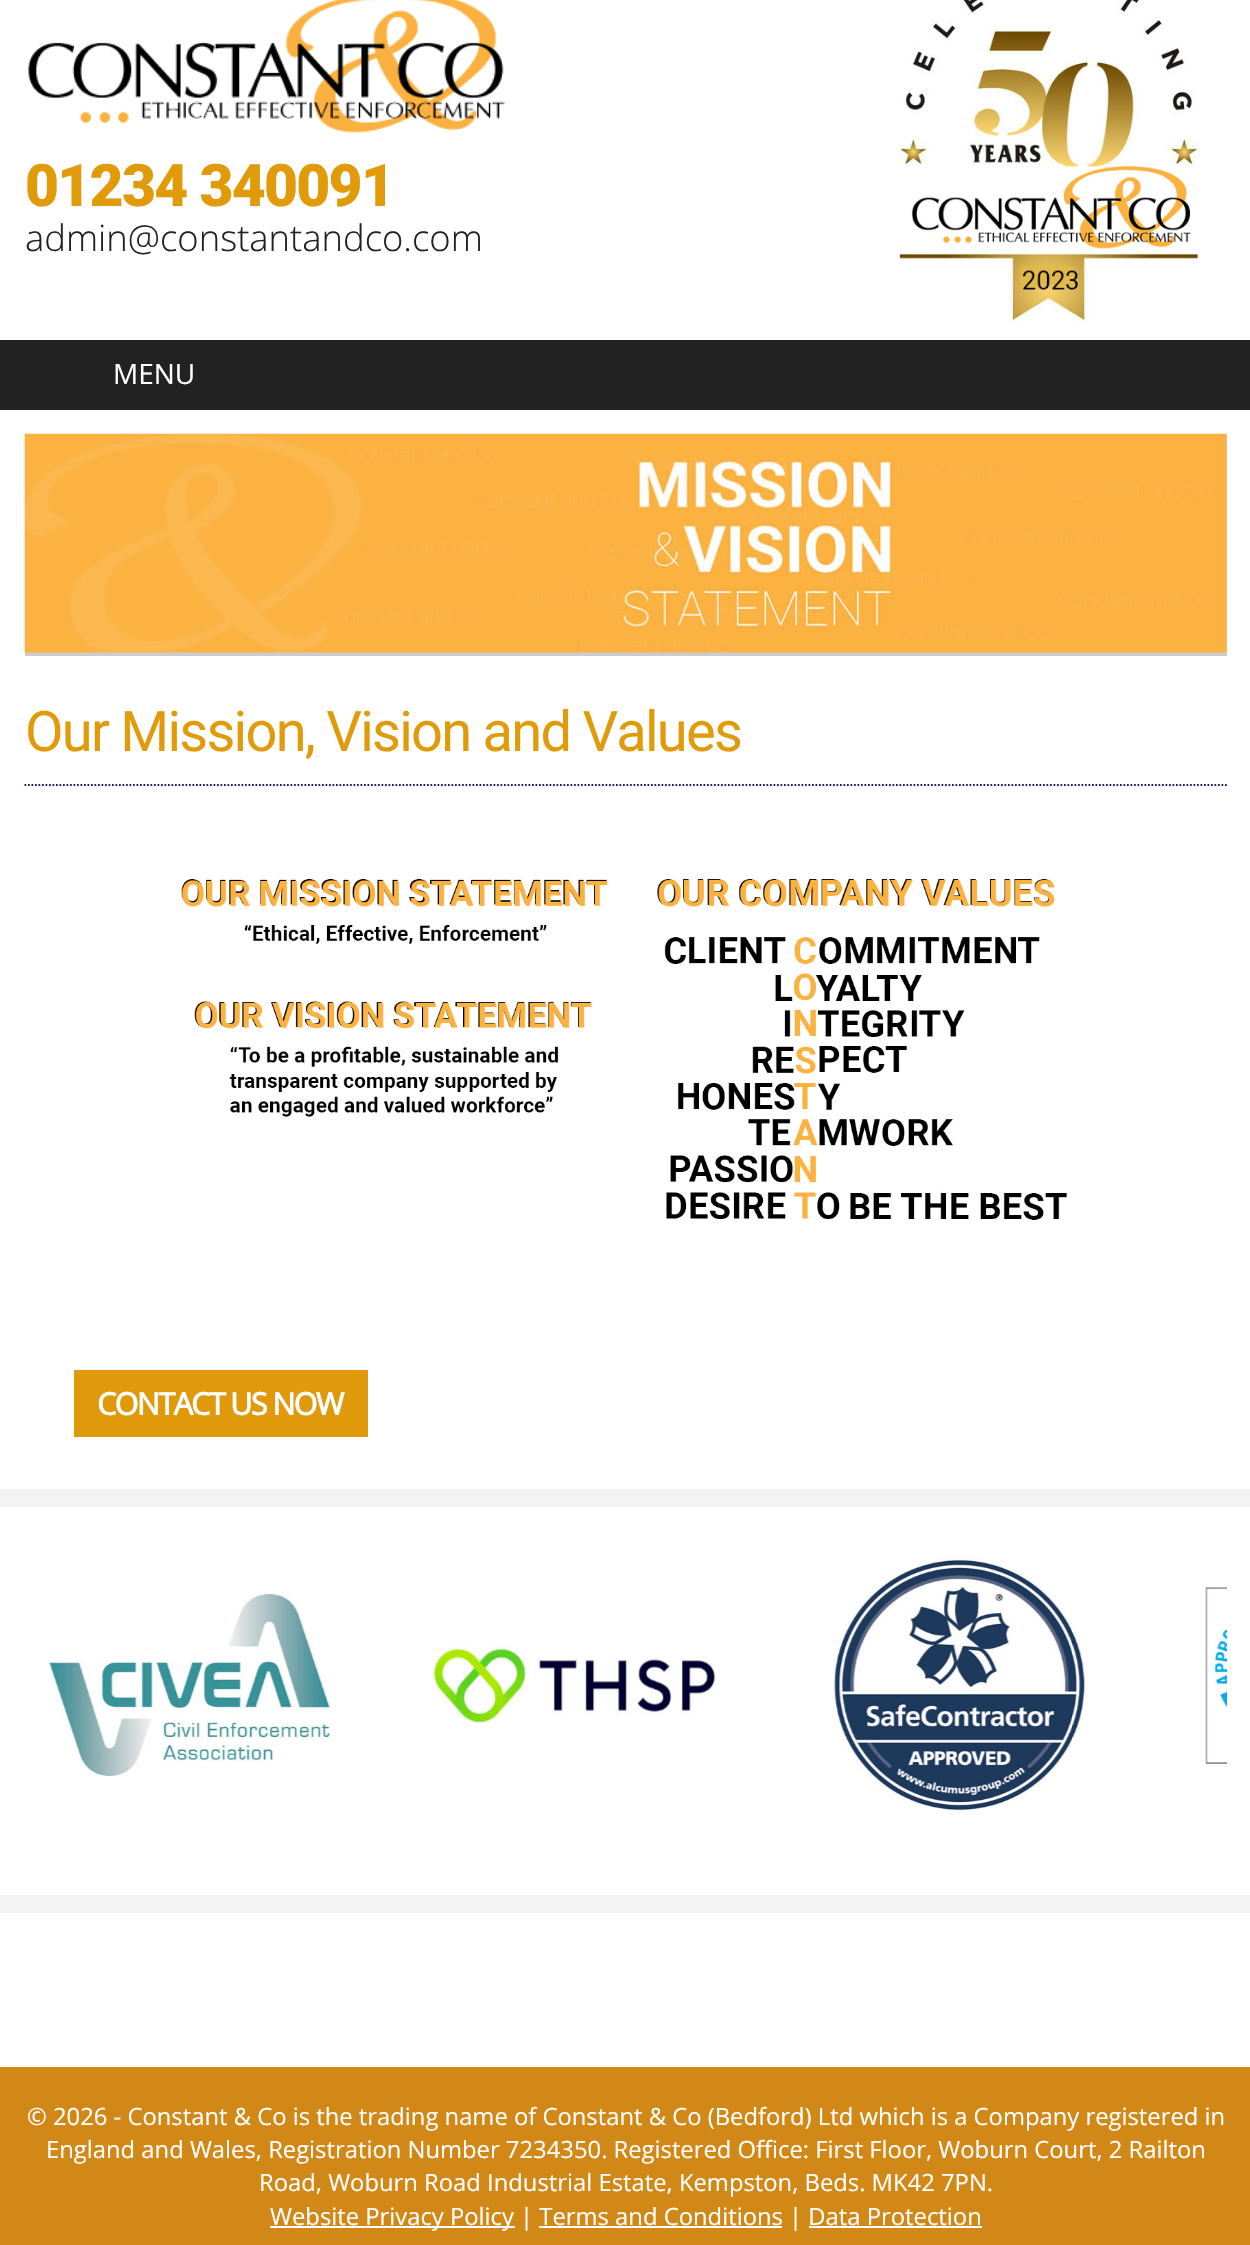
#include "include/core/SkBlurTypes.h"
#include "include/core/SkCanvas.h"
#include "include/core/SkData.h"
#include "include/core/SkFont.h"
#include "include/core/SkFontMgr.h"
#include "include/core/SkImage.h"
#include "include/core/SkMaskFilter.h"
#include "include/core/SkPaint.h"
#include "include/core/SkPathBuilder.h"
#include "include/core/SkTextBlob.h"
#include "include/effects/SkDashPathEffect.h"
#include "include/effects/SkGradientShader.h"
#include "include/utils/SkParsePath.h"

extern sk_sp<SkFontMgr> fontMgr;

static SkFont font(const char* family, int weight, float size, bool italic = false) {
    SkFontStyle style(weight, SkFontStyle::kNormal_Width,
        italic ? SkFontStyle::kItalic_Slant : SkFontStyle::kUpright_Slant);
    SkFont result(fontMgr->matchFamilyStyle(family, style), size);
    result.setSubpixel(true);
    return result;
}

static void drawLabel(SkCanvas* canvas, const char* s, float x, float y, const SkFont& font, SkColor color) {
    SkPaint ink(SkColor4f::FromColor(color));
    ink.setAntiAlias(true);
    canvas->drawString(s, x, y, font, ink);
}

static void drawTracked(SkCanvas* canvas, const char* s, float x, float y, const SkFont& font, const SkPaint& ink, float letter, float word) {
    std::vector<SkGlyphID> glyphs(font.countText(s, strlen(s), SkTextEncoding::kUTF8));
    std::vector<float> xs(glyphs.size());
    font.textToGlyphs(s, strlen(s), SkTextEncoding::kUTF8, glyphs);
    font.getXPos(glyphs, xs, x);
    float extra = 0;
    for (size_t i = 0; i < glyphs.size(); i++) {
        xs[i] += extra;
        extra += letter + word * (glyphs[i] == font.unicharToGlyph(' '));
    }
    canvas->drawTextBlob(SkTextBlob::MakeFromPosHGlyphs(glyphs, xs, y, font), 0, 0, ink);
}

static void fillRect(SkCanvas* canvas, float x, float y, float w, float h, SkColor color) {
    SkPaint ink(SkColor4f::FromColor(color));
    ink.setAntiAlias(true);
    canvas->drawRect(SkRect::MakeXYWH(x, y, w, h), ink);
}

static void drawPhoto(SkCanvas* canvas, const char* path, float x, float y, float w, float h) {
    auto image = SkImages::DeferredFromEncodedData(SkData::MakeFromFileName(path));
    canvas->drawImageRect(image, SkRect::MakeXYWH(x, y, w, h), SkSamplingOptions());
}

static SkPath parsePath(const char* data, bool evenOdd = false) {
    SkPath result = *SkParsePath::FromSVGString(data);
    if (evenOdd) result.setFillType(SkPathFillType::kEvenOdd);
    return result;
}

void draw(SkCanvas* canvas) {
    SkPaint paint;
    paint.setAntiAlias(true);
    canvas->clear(0xFFFFFFFF);
    drawPhoto(canvas, "assets/img1.png", 28, 0, 477, 133);
    drawPhoto(canvas, "assets/img2.png", 898, 0, 303, 322);
    SkFont font1 = font("Roboto", 900, 58.75f);
    paint.setColor(0xFFE09A0A);
    drawTracked(canvas, "01234 340091", 25, 206, font1, paint, -1.75f, 0);
    SkFont font2 = font("Open Sans", 300, 36.4f);
    drawLabel(canvas, "admin@constantandco.com", 25, 251, font2, 0xFF222222);
    fillRect(canvas, 0, 340, 1250, 70, 0xFF222222);
    SkFont font3 = font("Open Sans", 400, 28);
    drawLabel(canvas, "MENU", 113, 384, font3, 0xFFFFFFFF);
    fillRect(canvas, 25, 434, 1202, 222, 0xFFCCCCCC);
    drawPhoto(canvas, "assets/img3.png", 24, 433, 1203, 220);
    paint.setStroke(true);
    paint.setStrokeWidth(1.8f);
    paint.setColor(0xFF1D1F5D);
    paint.setPathEffect(SkDashPathEffect::Make({{1.75f, 1.75f}}, 0));
    canvas->drawPath(parsePath("M24.5 785H1227"), paint);
    paint.setPathEffect(nullptr);
    SkFont font4 = font("Roboto", 400, 56);
    paint.setStroke(false);
    paint.setColor(0xFFE09A0A);
    drawTracked(canvas, "Our Mission, Vision and Values", 25, 751, font4, paint, -1.75f, 0);
    drawPhoto(canvas, "assets/img4.png", 181, 879, 886, 341);
    fillRect(canvas, 74, 1370, 294, 67, 0xFFDF990A);
    SkFont font5 = font("Open Sans", 700, 30.75f);
    paint.setColor(0xFFFFFFFF);
    drawTracked(canvas, "CONTACT US NOW", 97, 1415, font5, paint, -1.75f, 0);
    fillRect(canvas, 0, 1489, 1250, 18, 0xFFF3F3F3);
    fillRect(canvas, 0, 1895, 1250, 18, 0xFFF3F3F3);
    drawPhoto(canvas, "assets/img5.png", 49, 1594, 282, 182);
    drawPhoto(canvas, "assets/img6.png", 434, 1646, 282, 77);
    drawPhoto(canvas, "assets/img7.png", 833, 1556, 255, 258);
    drawPhoto(canvas, "assets/img8.png", 1205, 1584, 22, 181);
    fillRect(canvas, 0, 2067, 1250, 178, 0xFFD18817);
    SkFont font6 = font("Open Sans", 400, 23.8f);
    drawLabel(canvas, "© 2026 - Constant & Co is the trading name of Constant & Co (Bedford) Ltd which is a Company registered in", 27, 2125, font6, 0xFFFFFFFF);
    drawLabel(canvas, "England and Wales, Registration Number 7234350. Registered Office: First Floor, Woburn Court, 2 Railton", 46, 2158, font6, 0xFFFFFFFF);
    drawLabel(canvas, "Road, Woburn Road Industrial Estate, Kempston, Beds. MK42 7PN.", 259, 2191, font6, 0xFFFFFFFF);
    fillRect(canvas, 270, 2226, 245, 2, 0xFFFFFFFF);
    drawLabel(canvas, "Website Privacy Policy | Terms and Conditions | Data Protection", 270, 2225, font6, 0xFFFFFFFF);
    fillRect(canvas, 539, 2226, 243, 2, 0xFFFFFFFF);
    fillRect(canvas, 809, 2226, 173, 2, 0xFFFFFFFF);
}
